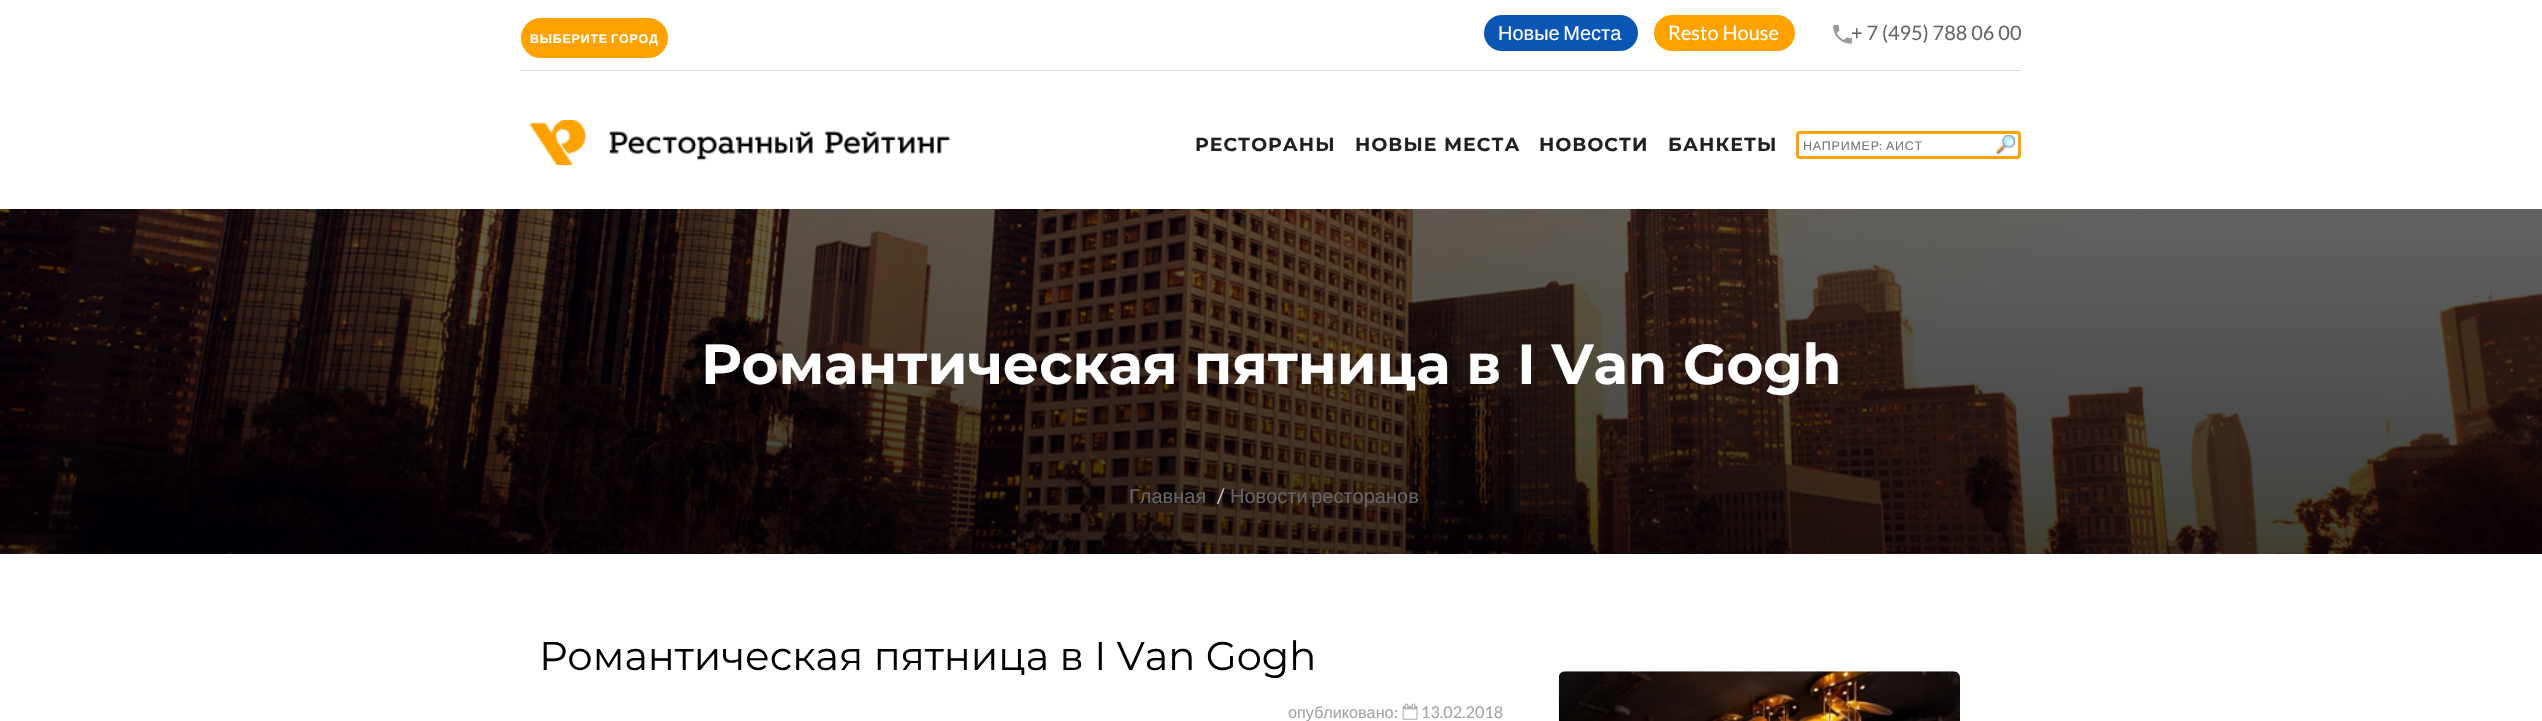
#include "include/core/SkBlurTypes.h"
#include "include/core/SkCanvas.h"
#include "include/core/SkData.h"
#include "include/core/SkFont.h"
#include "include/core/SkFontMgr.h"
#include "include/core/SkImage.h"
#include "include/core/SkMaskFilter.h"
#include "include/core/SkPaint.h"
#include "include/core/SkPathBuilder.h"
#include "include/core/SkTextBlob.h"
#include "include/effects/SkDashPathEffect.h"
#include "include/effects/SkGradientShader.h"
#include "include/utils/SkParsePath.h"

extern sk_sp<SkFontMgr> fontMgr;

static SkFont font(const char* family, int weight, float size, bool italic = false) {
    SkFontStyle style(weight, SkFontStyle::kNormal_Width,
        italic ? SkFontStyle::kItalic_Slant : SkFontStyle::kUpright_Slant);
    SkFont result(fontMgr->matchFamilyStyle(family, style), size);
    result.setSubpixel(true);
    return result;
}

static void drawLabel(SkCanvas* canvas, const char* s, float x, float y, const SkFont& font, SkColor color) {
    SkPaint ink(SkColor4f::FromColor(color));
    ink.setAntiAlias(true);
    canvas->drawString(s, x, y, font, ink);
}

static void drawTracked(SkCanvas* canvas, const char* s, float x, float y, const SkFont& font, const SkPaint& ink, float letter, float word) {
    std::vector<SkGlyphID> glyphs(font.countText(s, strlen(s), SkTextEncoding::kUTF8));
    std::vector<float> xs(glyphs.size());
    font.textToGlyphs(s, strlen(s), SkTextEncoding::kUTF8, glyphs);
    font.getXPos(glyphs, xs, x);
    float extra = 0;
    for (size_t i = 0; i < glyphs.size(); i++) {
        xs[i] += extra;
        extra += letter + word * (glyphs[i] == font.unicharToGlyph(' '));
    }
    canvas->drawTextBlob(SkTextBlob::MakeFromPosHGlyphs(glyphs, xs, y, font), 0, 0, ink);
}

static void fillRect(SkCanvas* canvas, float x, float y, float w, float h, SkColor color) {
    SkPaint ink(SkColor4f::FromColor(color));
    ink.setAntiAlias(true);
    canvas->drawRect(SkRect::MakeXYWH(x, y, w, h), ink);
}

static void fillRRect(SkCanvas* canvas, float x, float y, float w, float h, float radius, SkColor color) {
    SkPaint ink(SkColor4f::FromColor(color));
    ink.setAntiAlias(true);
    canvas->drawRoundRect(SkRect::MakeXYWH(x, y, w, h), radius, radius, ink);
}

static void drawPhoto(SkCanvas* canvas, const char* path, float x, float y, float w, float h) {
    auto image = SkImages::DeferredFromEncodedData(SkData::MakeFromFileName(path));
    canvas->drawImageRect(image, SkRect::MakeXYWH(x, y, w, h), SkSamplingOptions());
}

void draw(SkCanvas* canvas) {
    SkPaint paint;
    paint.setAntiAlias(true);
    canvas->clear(0xFFFFFFFF);
    fillRect(canvas, 521, 70, 1500, 1, 0xFFD9D9D9);
    paint.setColor(0xFFFFA200);
    canvas->drawRoundRect(SkRect::MakeXYWH(522.5f, 19.5f, 144, 37), 18.5f, 18.5f, paint);
    paint.setStroke(true);
    paint.setStrokeWidth(3);
    canvas->drawRoundRect(SkRect::MakeXYWH(522.5f, 19.5f, 144, 37), 18.5f, 18.5f, paint);
    SkFont font1 = font("Liberation Sans", 700, 12.5f);
    paint.setStroke(false);
    paint.setColor(0xFFFFFFFF);
    drawTracked(canvas, "ВЫБЕРИТЕ ГОРОД", 530, 43, font1, paint, 0.75f, -1);
    fillRRect(canvas, 1484, 15, 154, 36, 18, 0xFF0956B5);
    SkFont font2 = font("Liberation Sans", 400, 20);
    drawTracked(canvas, "Новые Места", 1498, 40, font2, paint, 0, -2);
    fillRRect(canvas, 1654, 15, 141, 36, 18, 0xFFFFA200);
    SkFont font3 = font("Lato", 400, 20);
    drawLabel(canvas, "Resto House", 1668, 40, font3, 0xFFFFFFFF);
    drawLabel(canvas, "+ 7 (495) 788 06 00", 1851, 40, font3, 0xFF666666);
    drawPhoto(canvas, "assets/img1.png", 1833, 25, 19, 19);
    drawPhoto(canvas, "assets/img2.png", 529, 120, 422, 45);
    SkFont font4 = font("Montserrat", 700, 18.75f);
    paint.setColor(0xFF212121);
    drawTracked(canvas, "РЕСТОРАНЫ", 1195, 151, font4, paint, 1.1f, 0);
    drawTracked(canvas, "НОВЫЕ МЕСТА", 1355, 151, font4, paint, 1.1f, 0);
    drawTracked(canvas, "НОВОСТИ", 1539, 151, font4, paint, 1.1f, 0);
    drawTracked(canvas, "БАНКЕТЫ", 1668, 151, font4, paint, 1.1f, 0);
    drawPhoto(canvas, "assets/img3.png", 1996, 134, 20, 20);
    paint.setStroke(true);
    paint.setColor(0xFFFFA200);
    canvas->drawRoundRect(SkRect::MakeXYWH(1797.5f, 132.5f, 222, 25), 2.5f, 2.5f, paint);
    SkFont font5 = font("Liberation Sans", 400, 12.5f);
    paint.setStroke(false);
    paint.setColor(0xFF757575);
    drawTracked(canvas, "НАПРИМЕР", 1803, 150, font5, paint, 0.75f, 0);
    SkFont font6 = font("Lato", 400, 12.5f);
    drawTracked(canvas, ":", 1879, 150, font6, paint, 0.75f, 0);
    drawTracked(canvas, "АИСТ", 1886, 150, font5, paint, 0.75f, 0);
    drawPhoto(canvas, "assets/img4.png", 0, 209, 2542, 345);
    SkFont font7 = font("Montserrat", 700, 56.25f);
    drawLabel(canvas, "Романтическая пятница в I Van Gogh", 701, 384, font7, 0xFFFFFFFF);
    drawLabel(canvas, "Главная", 1129, 503, font2, 0xFF666666);
    drawLabel(canvas, "/", 1217, 503, font3, 0xFFC4C4C4);
    paint.setColor(0xFF666666);
    drawTracked(canvas, "Новости ресторанов", 1230, 503, font2, paint, 0, -2);
    SkFont font8 = font("Montserrat", 400, 40);
    drawLabel(canvas, "Романтическая пятница в I Van Gogh", 539, 670, font8, 0xFF000000);
    SkFont font9 = font("Liberation Sans", 400, 16.25f);
    drawLabel(canvas, "опубликовано", 1288, 718, font9, 0xFFA4A4A4);
    SkFont font10 = font("Lato", 400, 16.25f);
    drawLabel(canvas, ":", 1394, 718, font10, 0xFFA4A4A4);
    drawPhoto(canvas, "assets/img5.png", 1402, 703, 16, 17);
    drawLabel(canvas, "13.02.2018", 1421, 718, font10, 0xFFA4A4A4);
    drawPhoto(canvas, "assets/img6.png", 1558, 671, 402, 50);
}
